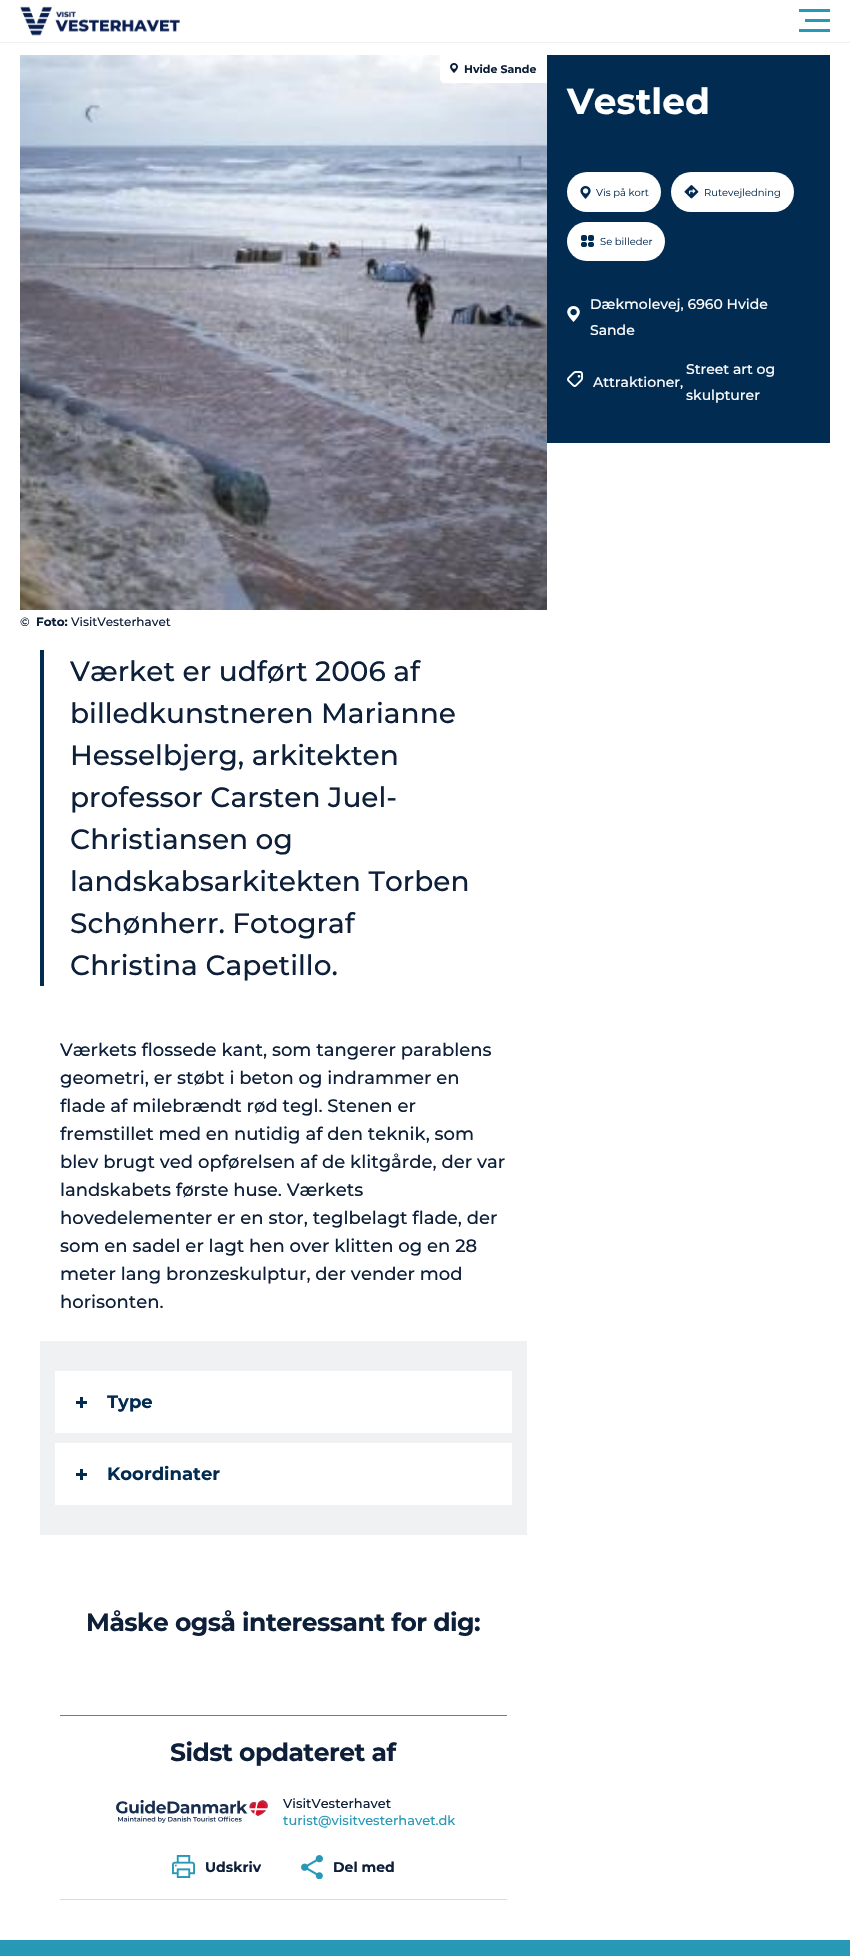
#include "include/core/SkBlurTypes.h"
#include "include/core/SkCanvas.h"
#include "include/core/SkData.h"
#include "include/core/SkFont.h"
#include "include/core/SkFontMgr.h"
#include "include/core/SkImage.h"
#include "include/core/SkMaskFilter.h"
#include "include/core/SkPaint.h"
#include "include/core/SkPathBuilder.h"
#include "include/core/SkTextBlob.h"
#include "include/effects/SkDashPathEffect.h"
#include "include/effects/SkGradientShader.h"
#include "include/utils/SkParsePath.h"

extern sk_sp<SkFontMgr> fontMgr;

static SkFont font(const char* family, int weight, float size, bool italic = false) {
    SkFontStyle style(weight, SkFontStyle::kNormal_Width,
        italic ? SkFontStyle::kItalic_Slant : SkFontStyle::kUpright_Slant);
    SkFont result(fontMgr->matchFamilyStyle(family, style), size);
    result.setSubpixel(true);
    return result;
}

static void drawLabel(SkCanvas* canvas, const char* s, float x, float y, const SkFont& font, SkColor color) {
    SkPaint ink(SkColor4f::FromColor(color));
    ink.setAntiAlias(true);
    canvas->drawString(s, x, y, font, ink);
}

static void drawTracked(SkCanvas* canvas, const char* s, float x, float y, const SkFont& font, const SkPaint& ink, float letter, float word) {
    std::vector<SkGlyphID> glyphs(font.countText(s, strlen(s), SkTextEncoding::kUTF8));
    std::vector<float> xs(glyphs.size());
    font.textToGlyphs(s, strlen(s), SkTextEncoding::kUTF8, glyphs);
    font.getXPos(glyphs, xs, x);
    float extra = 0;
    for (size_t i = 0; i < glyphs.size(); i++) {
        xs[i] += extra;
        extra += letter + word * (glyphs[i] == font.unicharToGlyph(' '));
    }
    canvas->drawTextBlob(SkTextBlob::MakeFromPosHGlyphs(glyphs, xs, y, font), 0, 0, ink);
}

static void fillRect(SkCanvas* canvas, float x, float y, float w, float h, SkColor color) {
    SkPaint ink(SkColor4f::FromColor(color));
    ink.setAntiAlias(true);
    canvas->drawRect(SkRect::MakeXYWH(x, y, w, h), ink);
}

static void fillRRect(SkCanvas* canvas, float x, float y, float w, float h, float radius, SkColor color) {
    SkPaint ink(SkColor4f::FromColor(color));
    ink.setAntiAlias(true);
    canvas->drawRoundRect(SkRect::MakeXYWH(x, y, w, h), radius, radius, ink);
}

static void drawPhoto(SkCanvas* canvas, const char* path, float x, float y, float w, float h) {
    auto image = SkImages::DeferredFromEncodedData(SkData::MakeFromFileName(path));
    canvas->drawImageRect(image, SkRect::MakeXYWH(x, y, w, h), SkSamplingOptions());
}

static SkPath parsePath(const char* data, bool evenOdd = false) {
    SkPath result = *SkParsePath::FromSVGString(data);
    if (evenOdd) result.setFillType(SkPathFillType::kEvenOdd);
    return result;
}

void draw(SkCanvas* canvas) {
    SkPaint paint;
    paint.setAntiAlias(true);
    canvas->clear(0xFFFFFFFF);
    fillRect(canvas, 0, 42, 850, 1, 0xFFF0F1F3);
    drawPhoto(canvas, "assets/img1.png", 20, 6, 160, 30);
    fillRect(canvas, 799, 9, 31, 3, 0xFF2898B7);
    fillRect(canvas, 805, 19, 25, 3, 0xFF2898B7);
    fillRect(canvas, 799, 29, 31, 3, 0xFF2898B7);
    drawPhoto(canvas, "assets/img2.png", 20, 55, 527, 555);
    paint.setColor(0xFFFFFFFF);
    canvas->drawPath(parsePath("M440 55H547V83H445C442 83 440 81 440 78Z"), paint);
    drawPhoto(canvas, "assets/img3.png", 450, 63, 8, 10);
    SkFont font1 = font("Montserrat", 700, 11);
    drawLabel(canvas, "Hvide Sande", 464, 73, font1, 0xFF0D1F39);
    SkFont font2 = font("Montserrat", 500, 12);
    drawLabel(canvas, "©", 20, 626, font2, 0xFF0D1F39);
    SkFont font3 = font("Montserrat", 700, 12);
    drawLabel(canvas, "Foto:", 36, 626, font3, 0xFF0D1F39);
    drawLabel(canvas, "VisitVesterhavet", 71, 626, font2, 0xFF0D1F39);
    fillRect(canvas, 547, 55, 283, 388, 0xFF022B52);
    SkFont font4 = font("Montserrat", 700, 36);
    drawLabel(canvas, "Vestled", 567, 114, font4, 0xFFFFFFFF);
    fillRRect(canvas, 567, 172, 94, 40, 20, 0xFFFFFFFF);
    drawPhoto(canvas, "assets/img4.png", 580, 186, 11, 13);
    SkFont font5 = font("Montserrat", 400, 10);
    drawLabel(canvas, "Vis på kort", 596, 196, font5, 0xFF022B52);
    fillRRect(canvas, 671, 172, 123, 40, 20, 0xFFFFFFFF);
    drawPhoto(canvas, "assets/img5.png", 684, 185, 15, 14);
    drawLabel(canvas, "Rutevejledning", 704, 196, font5, 0xFF022B52);
    fillRRect(canvas, 567, 222, 98, 39, 19.5f, 0xFFFFFFFF);
    drawPhoto(canvas, "assets/img6.png", 581, 235, 13, 12);
    drawLabel(canvas, "Se billeder", 600, 245, font5, 0xFF022B52);
    drawPhoto(canvas, "assets/img7.png", 567, 306, 13, 16);
    SkFont font6 = font("Montserrat", 500, 14);
    drawLabel(canvas, "Dækmolevej, 6960 Hvide", 590, 309, font6, 0xFFFFFFFF);
    drawLabel(canvas, "Sande", 590, 335, font6, 0xFFFFFFFF);
    drawPhoto(canvas, "assets/img8.png", 567, 371, 16, 16);
    drawLabel(canvas, "Attraktioner,", 593, 387, font6, 0xFFFFFFFF);
    drawLabel(canvas, "Street art og", 686, 374, font6, 0xFFFFFFFF);
    drawLabel(canvas, "skulpturer", 686, 400, font6, 0xFFFFFFFF);
    fillRect(canvas, 40, 650, 4, 336, 0xFF022B52);
    SkFont font7 = font("Montserrat", 500, 28);
    drawLabel(canvas, "Værket er udført 2006 af", 70, 681, font7, 0xFF0D1F39);
    drawLabel(canvas, "billedkunstneren Marianne", 70, 723, font7, 0xFF0D1F39);
    drawLabel(canvas, "Hesselbjerg, arkitekten", 70, 765, font7, 0xFF0D1F39);
    drawLabel(canvas, "professor Carsten Juel-", 70, 807, font7, 0xFF0D1F39);
    drawLabel(canvas, "Christiansen og", 70, 849, font7, 0xFF0D1F39);
    drawLabel(canvas, "landskabsarkitekten Torben", 70, 891, font7, 0xFF0D1F39);
    drawLabel(canvas, "Schønherr. Fotograf", 70, 933, font7, 0xFF0D1F39);
    drawLabel(canvas, "Christina Capetillo.", 70, 975, font7, 0xFF0D1F39);
    SkFont font8 = font("Montserrat", 500, 18);
    drawLabel(canvas, "Værkets flossede kant, som tangerer parablens", 60, 1056, font8, 0xFF0D1F39);
    drawLabel(canvas, "geometri, er støbt i beton og indrammer en", 60, 1084, font8, 0xFF0D1F39);
    drawLabel(canvas, "flade af milebrændt rød tegl. Stenen er", 60, 1112, font8, 0xFF0D1F39);
    drawLabel(canvas, "fremstillet med en nutidig af den teknik, som", 60, 1140, font8, 0xFF0D1F39);
    drawLabel(canvas, "blev brugt ved opførelsen af de klitgårde, der var", 60, 1168, font8, 0xFF0D1F39);
    drawLabel(canvas, "landskabets første huse. Værkets", 60, 1196, font8, 0xFF0D1F39);
    drawLabel(canvas, "hovedelementer er en stor, teglbelagt flade, der", 60, 1224, font8, 0xFF0D1F39);
    drawLabel(canvas, "som en sadel er lagt hen over klitten og en 28", 60, 1252, font8, 0xFF0D1F39);
    drawLabel(canvas, "meter lang bronzeskulptur, der vender mod", 60, 1280, font8, 0xFF0D1F39);
    drawLabel(canvas, "horisonten.", 60, 1308, font8, 0xFF0D1F39);
    fillRect(canvas, 40, 1341, 487, 194, 0xFFEFF1F3);
    fillRect(canvas, 55, 1371, 457, 62, 0xFFFFFFFF);
    fillRect(canvas, 76, 1401, 11, 3, 0xFF022B52);
    fillRect(canvas, 80, 1397, 3, 11, 0xFF022B52);
    SkFont font9 = font("Montserrat", 700, 18);
    drawLabel(canvas, "Type", 107, 1408, font9, 0xFF022B52);
    fillRect(canvas, 55, 1443, 457, 62, 0xFFFFFFFF);
    fillRect(canvas, 76, 1473, 11, 3, 0xFF022B52);
    fillRect(canvas, 80, 1469, 3, 11, 0xFF022B52);
    drawLabel(canvas, "Koordinater", 107, 1480, font9, 0xFF022B52);
    SkFont font10 = font("Montserrat", 700, 25);
    paint.setColor(0xFF0D1F39);
    drawTracked(canvas, "Måske også interessant for dig:", 86, 1631, font10, paint, -0.5f, 0);
    fillRect(canvas, 60, 1715, 447, 1, 0xFF2898B7);
    fillRect(canvas, 60, 1899, 447, 1, 0xFFDEDCDA);
    drawTracked(canvas, "Sidst opdateret af", 170, 1761, font10, paint, -0.5f, 0);
    drawPhoto(canvas, "assets/img9.png", 116, 1800, 152, 23);
    SkFont font11 = font("Montserrat", 500, 13);
    drawLabel(canvas, "VisitVesterhavet", 283, 1808, font11, 0xFF0D1F39);
    drawLabel(canvas, "turist@visitvesterhavet.dk", 283, 1825, font11, 0xFF2898B7);
    drawPhoto(canvas, "assets/img10.png", 172, 1855, 23, 23);
    SkFont font12 = font("Montserrat", 700, 14);
    drawLabel(canvas, "Udskriv", 205, 1872, font12, 0xFF0D1F39);
    drawPhoto(canvas, "assets/img11.png", 301, 1855, 22, 24);
    drawLabel(canvas, "Del med", 333, 1872, font12, 0xFF0D1F39);
    fillRect(canvas, 0, 1940, 850, 16, 0xFF2898B7);
}
